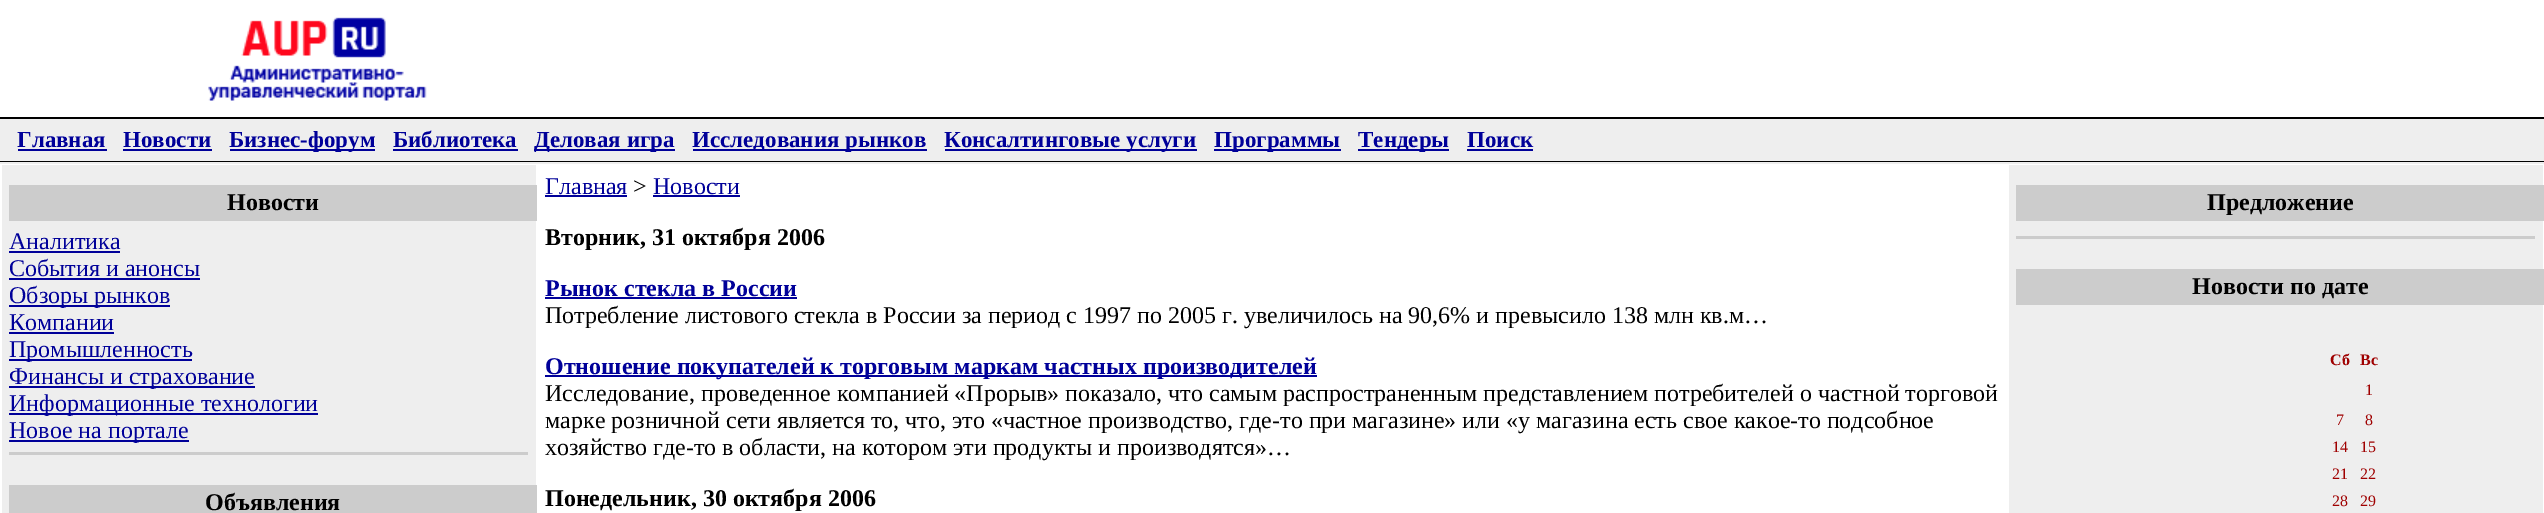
%!PS
<< /PageSize [2544 513] >> setpagedevice
/co { dup -16 bitshift 255 div exch dup -8 bitshift 255 and 255 div exch 255 and 255 div setrgbcolor } def
/fn { [ exch dup neg 0 0 3 -1 roll 0 0 ] selectfont } def
/tx { co fn moveto show } def
/bx { co rectfill } def
/im { 5 dict begin { /h /w /y /x /name } { exch def } forall
  gsave x y translate w h scale
  w h 8 [w 0 0 h 0 0] name (r) file false 3 colorimage grestore end } def
0 513 translate 1 -1 scale
4 setmiterlimit
0 0 2544 513 16#FFFFFF bx
(media/1.raw) 208 17 219 84 im
0 119 2544 42 16#EEEEEE bx
0 117 2544 2 16#000000 bx
0 161 2544 1 16#000000 bx
18 149 89 2 16#000099 bx
123 149 89 2 16#000099 bx
230 149 145 2 16#000099 bx
393 149 125 2 16#000099 bx
534 149 141 2 16#000099 bx
693 149 234 2 16#000099 bx
945 149 252 2 16#000099 bx
1214 149 127 2 16#000099 bx
1358 149 91 2 16#000099 bx
1467 149 66 2 16#000099 bx
0 162 2544 2 16#EEEEEE bx
2 165 534 348 16#EEEEEE bx
9 452 519 3 16#CCCCCC bx
9 185 528 36 16#CCCCCC bx
9 251 111 2 16#000099 bx
9 278 191 2 16#000099 bx
9 305 161 2 16#000099 bx
9 332 105 2 16#000099 bx
9 359 183 2 16#000099 bx
9 386 246 2 16#000099 bx
9 413 309 2 16#000099 bx
9 440 180 2 16#000099 bx
9 485 528 28 16#CCCCCC bx
545 195 82 2 16#000099 bx
653 195 87 2 16#000099 bx
545 297 252 2 16#000099 bx
545 375 772 2 16#000099 bx
2009 165 534 348 16#EEEEEE bx
2016 236 519 3 16#CCCCCC bx
2016 185 528 36 16#CCCCCC bx
2016 269 528 36 16#CCCCCC bx
(Главная) 17 147 /LiberationSerif-Bold 23 16#000099 tx
(Новости) 123 147 /LiberationSerif-Bold 23 16#000099 tx
(Бизнес-форум) 229 147 /LiberationSerif-Bold 23 16#000099 tx
(Библиотека) 393 147 /LiberationSerif-Bold 23 16#000099 tx
(Деловая игра) 534 147 /LiberationSerif-Bold 23 16#000099 tx
(Исследования рынков) 692 147 /LiberationSerif-Bold 23 16#000099 tx
(Консалтинговые услуги) 944 147 /LiberationSerif-Bold 23 16#000099 tx
(Программы) 1214 147 /LiberationSerif-Bold 23 16#000099 tx
(Тендеры) 1358 147 /LiberationSerif-Bold 23 16#000099 tx
(Поиск) 1467 147 /LiberationSerif-Bold 23 16#000099 tx
(Новости) 227 210 /LiberationSerif-Bold 24 16#000000 tx
(Аналитика) 9 249 /LiberationSerif-Regular 24 16#000099 tx
(События и анонсы) 9 276 /LiberationSerif-Regular 24 16#000099 tx
(Обзоры рынков) 9 303 /LiberationSerif-Regular 24 16#000099 tx
(Компании) 9 330 /LiberationSerif-Regular 24 16#000099 tx
(Промышленность) 9 357 /LiberationSerif-Regular 24 16#000099 tx
(Финансы и страхование) 9 384 /LiberationSerif-Regular 24 16#000099 tx
(Информационные технологии) 9 411 /LiberationSerif-Regular 24 16#000099 tx
(Новое на портале) 9 438 /LiberationSerif-Regular 24 16#000099 tx
(Объявления) 205 510 /LiberationSerif-Bold 24 16#000000 tx
(Главная) 545 194 /LiberationSerif-Regular 24 16#000099 tx
(>) 633 194 /LiberationSerif-Regular 24 16#000000 tx
(Новости) 653 194 /LiberationSerif-Regular 24 16#000099 tx
(Вторник, 31 октября 2006) 545 245 /LiberationSerif-Bold 24 16#000000 tx
(Рынок стекла в России) 545 296 /LiberationSerif-Bold 24 16#000099 tx
(Потребление листового стекла в России за период с 1997 по 2005 г. увеличилось на 90,6% и превысило 138 млн кв.м…) 545 323 /LiberationSerif-Regular 24 16#000000 tx
(Отношение покупателей к торговым маркам частных производителей) 545 374 /LiberationSerif-Bold 24 16#000099 tx
(Исследование, проведенное компанией «Прорыв» показало, что самым распространенным представлением потребителей о частной торговой) 545 401 /LiberationSerif-Regular 24 16#000000 tx
(марке розничной сети является то, что, это «частное производство, где-то при магазине» или «у магазина есть свое какое-то подсобное) 545 428 /LiberationSerif-Regular 24 16#000000 tx
(хозяйство где-то в области, на котором эти продукты и производятся»…) 545 455 /LiberationSerif-Regular 24 16#000000 tx
(Понедельник, 30 октября 2006) 545 506 /LiberationSerif-Bold 24 16#000000 tx
(Предложение) 2207 210 /LiberationSerif-Bold 24 16#000000 tx
(Новости по дате) 2192 294 /LiberationSerif-Bold 24 16#000000 tx
(Сб) 2330 365 /LiberationSerif-Bold 16 16#9F0000 tx
(Вс) 2360 365 /LiberationSerif-Bold 16 16#9F0000 tx
(1) 2365 395 /LiberationSerif-Regular 16 16#9F0000 tx
(7) 2336 425 /LiberationSerif-Regular 16 16#9F0000 tx
(8) 2365 425 /LiberationSerif-Regular 16 16#9F0000 tx
(14) 2332 452 /LiberationSerif-Regular 16 16#9F0000 tx
(15) 2360 452 /LiberationSerif-Regular 16 16#9F0000 tx
(21) 2332 479 /LiberationSerif-Regular 16 16#9F0000 tx
(22) 2360 479 /LiberationSerif-Regular 16 16#9F0000 tx
(28) 2332 506 /LiberationSerif-Regular 16 16#9F0000 tx
(29) 2360 506 /LiberationSerif-Regular 16 16#9F0000 tx
showpage
